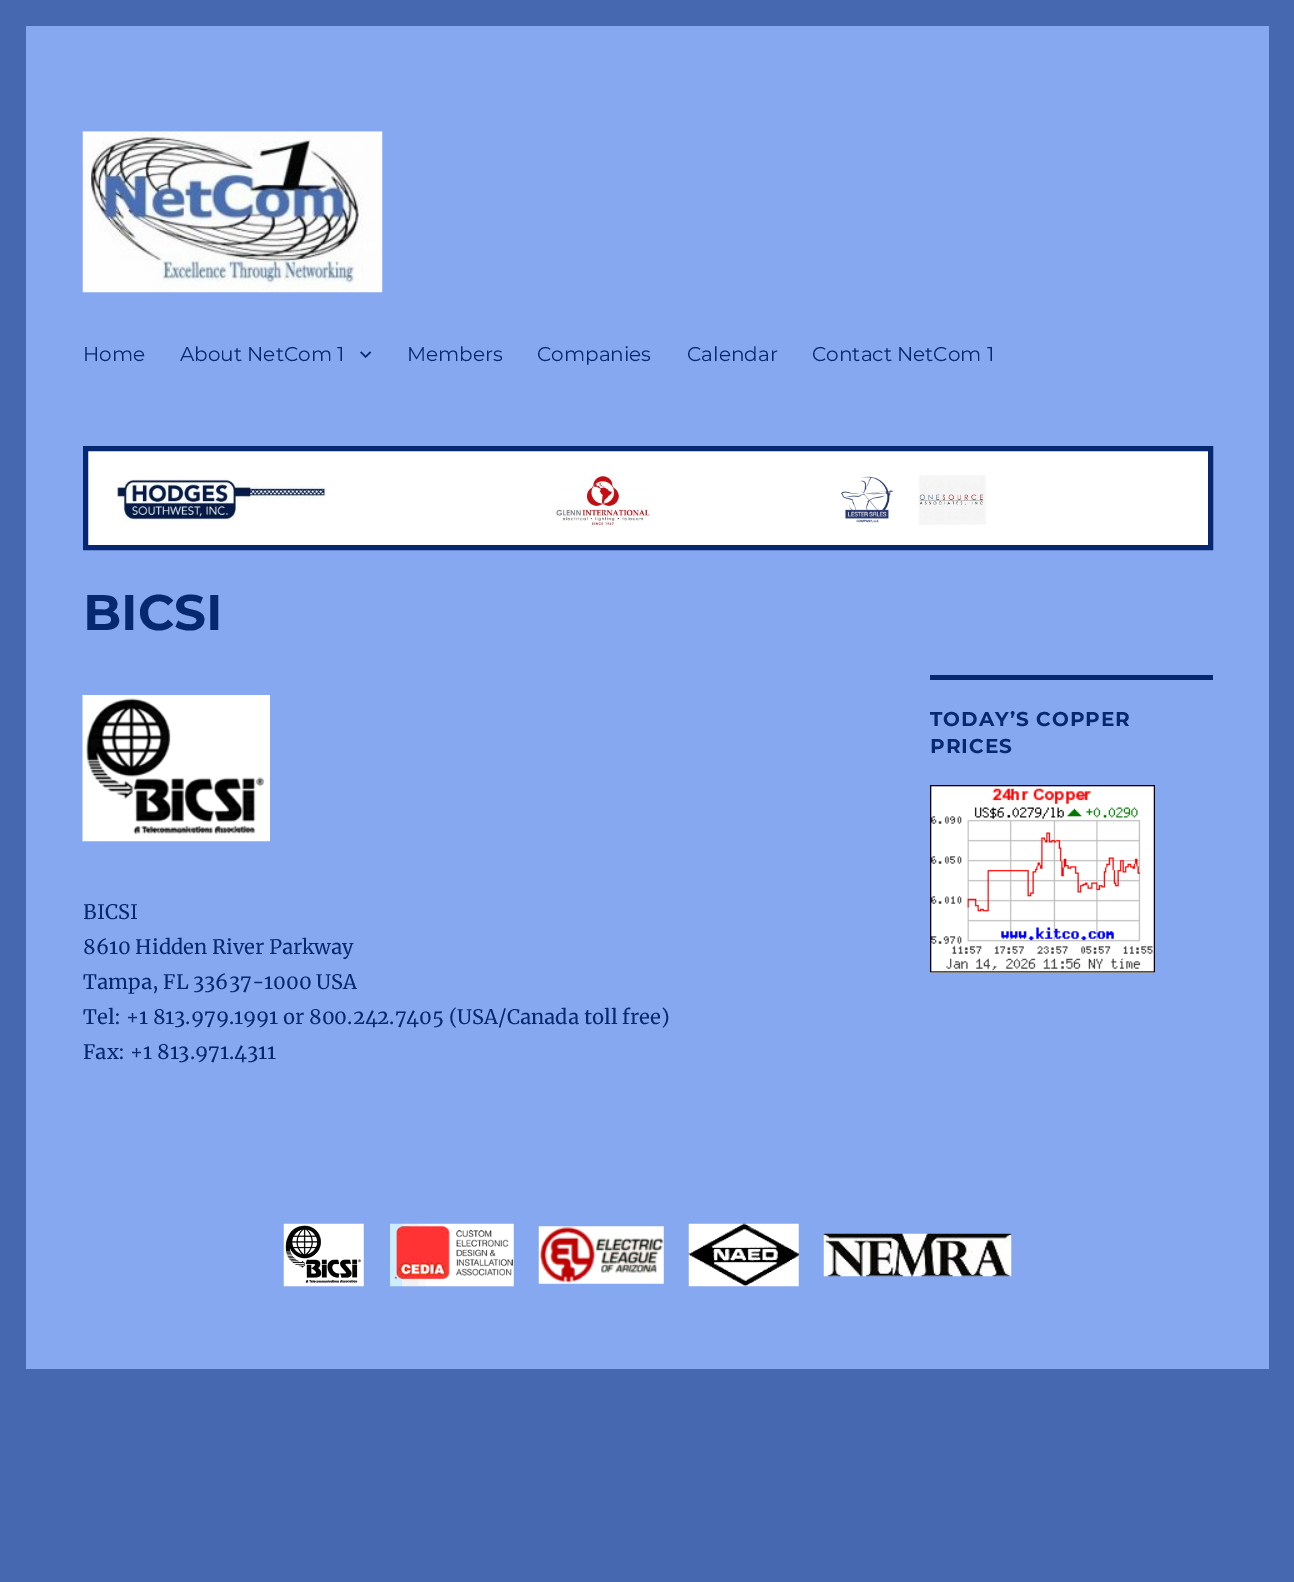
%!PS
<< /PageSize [1294 1582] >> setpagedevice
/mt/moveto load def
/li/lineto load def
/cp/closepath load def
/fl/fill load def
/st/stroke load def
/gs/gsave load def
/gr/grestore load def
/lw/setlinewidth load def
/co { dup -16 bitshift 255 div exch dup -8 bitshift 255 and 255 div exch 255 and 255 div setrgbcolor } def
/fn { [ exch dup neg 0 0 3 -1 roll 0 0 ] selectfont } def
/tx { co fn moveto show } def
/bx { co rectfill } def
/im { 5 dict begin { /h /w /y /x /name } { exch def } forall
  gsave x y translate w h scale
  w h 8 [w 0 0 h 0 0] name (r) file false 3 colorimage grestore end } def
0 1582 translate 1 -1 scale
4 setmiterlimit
0 0 1294 1582 16#4668B0 bx
26 26 1243 1343 16#86A8F0 bx
(media/1.raw) 82 131 301 162 im
(media/2.raw) 360 351 12 7 im
16#FFFFFF co
85.5 448.5 mt 1210.5 448.5 li 1210.5 547.5 li 85.5 547.5 li cp gs fl gr
16#062870 co
5 lw
st
(media/3.raw) 112 479 215 47 im
(media/4.raw) 556 473 95 53 im
(media/5.raw) 841 476 53 47 im
(media/6.raw) 918 475 68 50 im
(media/7.raw) 82 695 188 147 im
930 675 283 5 16#062870 bx
930 786 225 187 16#FFFFFF bx
(media/8.raw) 930 785 225 188 im
(media/9.raw) 283 1223 81 64 im
(media/10.raw) 390 1223 124 64 im
(media/11.raw) 538 1226 126 58 im
(media/12.raw) 688 1223 111 64 im
(media/13.raw) 823 1233 189 44 im
(Home) 83 361 /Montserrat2-Thin 20 16#062870 tx
(About NetCom 1) 180 361 /Montserrat2-Thin 20 16#062870 tx
(Members) 407 361 /Montserrat2-Thin 20 16#062870 tx
(Companies) 537 361 /Montserrat2-Thin 20 16#062870 tx
(Calendar) 687 361 /Montserrat2-Thin 20 16#062870 tx
(Contact NetCom 1) 812 361 /Montserrat2-Thin 20 16#062870 tx
(BICSI) 83 630 /Montserrat-Thin 50 16#062870 tx
(BICSI) 83 919 /Merriweather-Regular 20 16#062870 tx
(8610 Hidden River Parkway) 83 954 /Merriweather-Regular 20 16#062870 tx
(Tampa, FL 33637-1000 USA) 83 989 /Merriweather-Regular 20 16#062870 tx
(Tel: +1 813.979.1991 or 800.242.7405 \(USA/Canada toll free\)) 83 1024 /Merriweather-Regular 20 16#062870 tx
(Fax: +1 813.971.4311) 83 1059 /Merriweather-Regular 20 16#062870 tx
/Montserrat-Thin 20 fn
930 726 mt 1 0 (TODAY’S COPPER) ashow
930 753 mt 1 0 (PRICES) ashow
showpage
